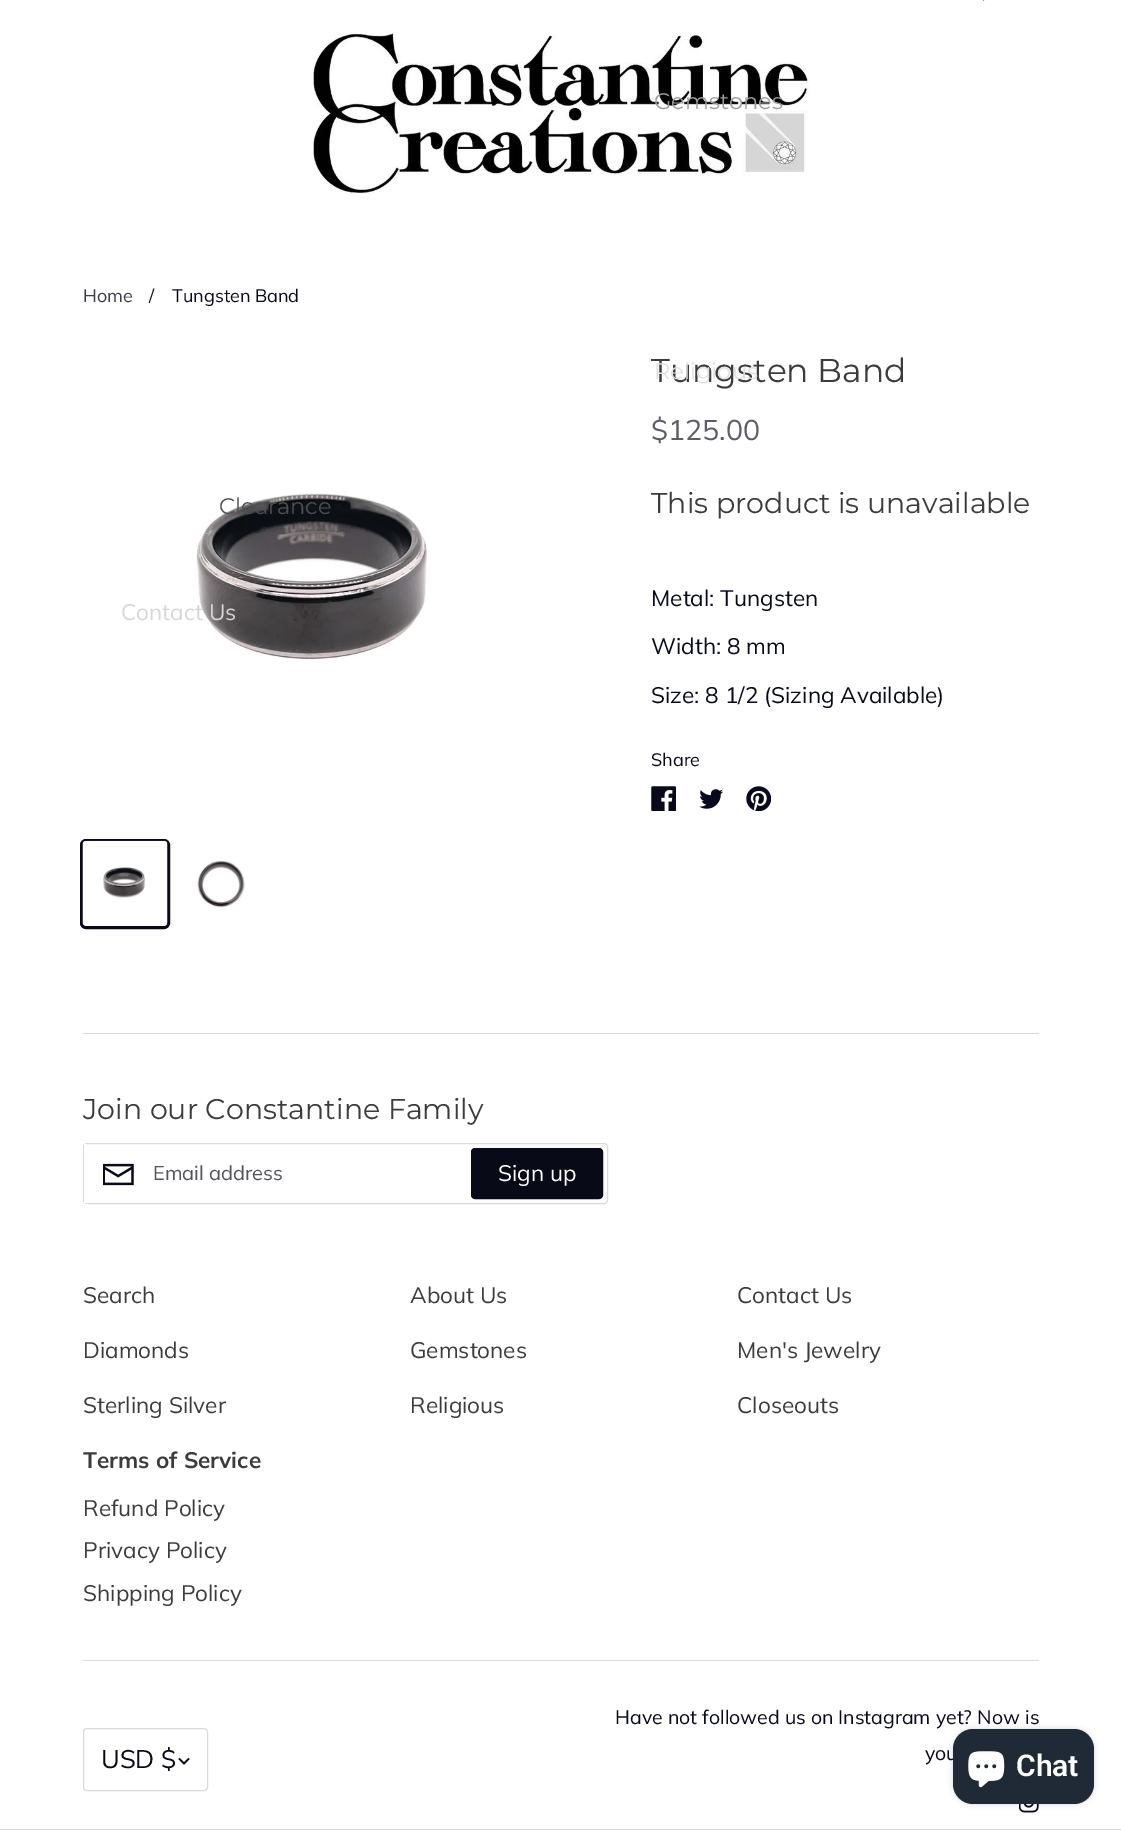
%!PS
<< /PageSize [1121 1830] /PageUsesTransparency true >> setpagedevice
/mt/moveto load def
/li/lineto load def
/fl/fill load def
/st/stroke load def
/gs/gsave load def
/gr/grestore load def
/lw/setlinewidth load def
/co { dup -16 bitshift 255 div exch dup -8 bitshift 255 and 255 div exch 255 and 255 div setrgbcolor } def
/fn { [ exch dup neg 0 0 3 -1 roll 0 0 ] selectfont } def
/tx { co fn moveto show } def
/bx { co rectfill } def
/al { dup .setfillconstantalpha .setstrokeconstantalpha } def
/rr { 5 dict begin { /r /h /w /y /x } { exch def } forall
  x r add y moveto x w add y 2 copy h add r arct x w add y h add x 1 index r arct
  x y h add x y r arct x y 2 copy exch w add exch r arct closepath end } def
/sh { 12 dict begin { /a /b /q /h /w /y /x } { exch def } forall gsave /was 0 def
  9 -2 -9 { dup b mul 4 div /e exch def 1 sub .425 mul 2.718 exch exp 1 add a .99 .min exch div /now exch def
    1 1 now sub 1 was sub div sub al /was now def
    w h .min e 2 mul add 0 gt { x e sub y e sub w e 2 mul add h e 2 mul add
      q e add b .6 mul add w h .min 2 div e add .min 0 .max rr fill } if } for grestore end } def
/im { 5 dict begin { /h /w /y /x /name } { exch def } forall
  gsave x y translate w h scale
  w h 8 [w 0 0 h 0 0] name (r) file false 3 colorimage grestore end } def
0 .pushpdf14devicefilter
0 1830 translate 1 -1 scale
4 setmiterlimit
0 0 1121 1830 16#FFFFFF bx
(media/1.raw) 311 31 499 163 im
(media/2.raw) 983 0 2 1 im
0 1829 1121 1 16#DADADC bx
(media/3.raw) 196 493 233 167 im
16#080A18 co
3 lw
81.5 840.5 87 87 4.5 rr st
(media/4.raw) 82 840 86 86 im
(media/5.raw) 197 860 48 49 im
(media/6.raw) 651 786 25 25 im
(media/7.raw) 699 789 24 20 im
(media/8.raw) 746 786 25 25 im
83 1033 956 1 16#DADADC bx
1 lw
83.5 1143.5 524 60 3.5 rr st
(media/9.raw) 103 1163 31 23 im
84 1144 3 59 16#FFFFFF bx
16#080A18 co
471.5 1148.5 131 50 3.5 rr gs fl gr
st
83 1660 956 1 16#DADADC bx
83.5 1728.5 124 62 3.5 rr st
16#080A18 co
1.7 lw
179 1758.5 mt 184 1763.5 li 189 1758.5 li st
(media/10.raw) 1019 1804 20 9 im
16#000000 co
953 1729 141 75 20 3 .15 sh
(Gemstones) 654 109 /Montserrat-Regular 22.5 16#9D9D9D tx
(Clearance) 219 514 /Montserrat-Regular 22.5 16#4D4F52 tx
(Contact Us) 121 620 /Muli-Regular 22.5 16#D7D6D7 tx
(Home) 83 302 /Muli-Regular 18 16#393B46 tx
(/) 149 302 /Muli-Regular 18 16#080A18 tx
(Tungsten Band) 172 302 /Muli-Regular 18 16#080A18 tx
(Tungsten Band) 651 382 /Montserrat-Regular 33 16#3B3B3B tx
(Religious) 654 379 /Montserrat-Regular 22.5 16#DFDFDF tx
($125.00) 651 440 /Muli-Regular 28.5 16#5C5D66 tx
(This product is unavailable) 651 513 /Montserrat-Regular 28.5 16#3B3B3B tx
(Metal: Tungsten) 651 606 /Muli-Regular 22.5 16#080A18 tx
(Width: 8 mm) 651 654 /Muli-Regular 22.5 16#080A18 tx
(Size: 8 1/2 \(Sizing Available\)) 651 703 /Muli-Regular 22.5 16#080A18 tx
(Share) 651 766 /Muli-Regular 18 16#080A18 tx
(Join our Constantine Family) 83 1119 /Montserrat-Regular 28.5 16#3B3B3B tx
(Email address) 153 1180 /Muli-Regular 20 16#52545D tx
(Sign up) 498 1181 /Muli-Regular 22.5 16#FFFFFF tx
(Search) 83 1303 /Muli-Regular 22.5 16#3B3B3B tx
(About Us) 410 1303 /Muli-Regular 22.5 16#3B3B3B tx
(Contact Us) 737 1303 /Muli-Regular 22.5 16#3B3B3B tx
(Diamonds) 83 1358 /Muli-Regular 22.5 16#3B3B3B tx
(Gemstones) 410 1358 /Muli-Regular 22.5 16#3B3B3B tx
(Men's Jewelry) 737 1358 /Muli-Regular 22.5 16#3B3B3B tx
(Sterling Silver) 83 1413 /Muli-Regular 22.5 16#3B3B3B tx
(Religious) 410 1413 /Muli-Regular 22.5 16#3B3B3B tx
(Closeouts) 737 1413 /Muli-Regular 22.5 16#3B3B3B tx
(Terms of Service) 83 1468 /Muli-Bold 22.5 16#3B3B3B tx
(Refund Policy) 83 1516 /Muli-Regular 22.5 16#3B3B3B tx
(Privacy Policy) 83 1558 /Muli-Regular 22.5 16#3B3B3B tx
(Shipping Policy) 83 1601 /Muli-Regular 22.5 16#3B3B3B tx
(USD $) 101 1768 /Muli-Regular 25.5 16#080A18 tx
(Have not followed us on Instagram yet? Now is) 615 1724 /Muli-Regular 19.5 16#080A18 tx
(you) 925 1760 /Muli-Regular 19.5 16#080A18 tx
16#202A36 co
953 1729 141 75 20 rr fl
(media/11.raw) 968 1751 37 37 im
(Chat) 1016 1776 /Roboto-SemiBold 30 16#FFFFFF tx
.poppdf14devicefilter showpage
